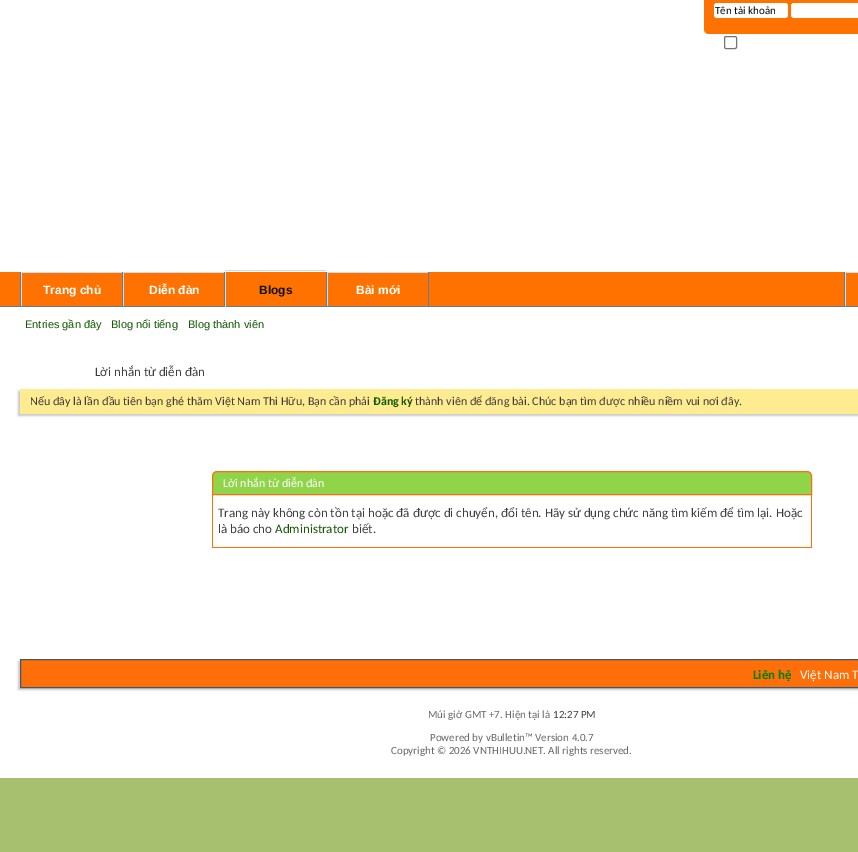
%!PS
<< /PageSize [858 852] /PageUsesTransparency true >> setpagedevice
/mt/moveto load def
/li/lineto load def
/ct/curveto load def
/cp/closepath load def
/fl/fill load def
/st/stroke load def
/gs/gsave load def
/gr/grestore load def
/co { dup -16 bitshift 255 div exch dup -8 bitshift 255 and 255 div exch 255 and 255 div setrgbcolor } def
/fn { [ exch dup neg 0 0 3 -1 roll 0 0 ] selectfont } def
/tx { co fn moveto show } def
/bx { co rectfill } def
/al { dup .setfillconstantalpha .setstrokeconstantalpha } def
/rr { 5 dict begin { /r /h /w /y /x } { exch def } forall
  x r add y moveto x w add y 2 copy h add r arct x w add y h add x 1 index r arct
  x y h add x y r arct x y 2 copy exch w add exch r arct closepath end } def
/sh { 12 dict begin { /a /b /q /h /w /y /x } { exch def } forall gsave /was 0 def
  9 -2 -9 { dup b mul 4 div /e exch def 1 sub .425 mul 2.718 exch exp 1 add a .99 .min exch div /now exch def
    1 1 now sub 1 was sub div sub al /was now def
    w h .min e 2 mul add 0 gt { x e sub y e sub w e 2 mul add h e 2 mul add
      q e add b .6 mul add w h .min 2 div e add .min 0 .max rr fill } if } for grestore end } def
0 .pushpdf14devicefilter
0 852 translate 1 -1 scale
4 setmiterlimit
0 0 858 852 16#A6C070 bx
0 0 858 778 16#FFFFFF bx
16#FF7200 co
704 0 mt 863 0 li 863 29 li 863 32 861 34 858 34 ct 709 34 li 706 34 704 32 704 29 ct cp fl
16#FFFFFF co
714 3 74 15 3 rr fl
791 3 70 15 3 rr fl
16#767676 co
724.5 36.5 12 12 1.5 rr st
0 272 858 34 16#FF7200 bx
224 272 1 35 16#5A7F97 bx
123 272 101 1 16#CEDFEB bx
123 272 1 35 16#CEDFEB bx
326 272 1 34 16#5A7F97 bx
225 270 101 1 16#CEDFEB bx
122 272 1 35 16#5A7F97 bx
20 272 1 35 16#5A7F97 bx
21 272 101 1 16#CEDFEB bx
21 272 1 35 16#CEDFEB bx
428 272 1 35 16#5A7F97 bx
327 272 101 1 16#CEDFEB bx
327 272 1 35 16#CEDFEB bx
0 306 858 1 16#5A7F97 bx
225 270 1 37 16#CEDFEB bx
844 272 1 34 16#5A7F97 bx
845 272 13 1 16#CEDFEB bx
845 272 1 34 16#CEDFEB bx
16#C8C8C8 co
18 391 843 25 0 1 1 sh
20 389 838 25 16#FFEB90 bx
16#90D449 co
217 471.5 mt 807 471.5 li 809.5 471.5 811.5 473.5 811.5 476 ct 811.5 494.5 li 212.5 494.5 li 212.5 476 li 212.5 473.5 214.5 471.5 217 471.5 ct cp gs fl gr
16#FF6F09 co
st
811 495 1 53 16#FF6F09 bx
212 547 600 1 16#FF6F09 bx
212 495 1 53 16#FF6F09 bx
16#C8C8C8 co
18 661 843 29 0 1 1 sh
16#FF6F09 co
20.5 659.5 mt 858.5 659.5 li 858.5 687.5 li 20.5 687.5 li cp gs fl gr
16#435769 co
st
(Tên tài khoản) 715 14 /Carlito-Regular 11 16#000000 tx
(Diễn đàn) 149 294 /LiberationSans-Bold 12 16#FFFFFF tx
(Blogs) 259 294 /LiberationSans-Bold 12 16#111111 tx
(Entries gần đây) 25 328 /LiberationSans-Regular 11 16#105802 tx
(Blog nổi tiếng) 111 328 /LiberationSans-Regular 11 16#105802 tx
(Blog thành viên) 188 328 /LiberationSans-Regular 11 16#105802 tx
(Trang chủ) 43 294 /LiberationSans-Bold 12 16#FFFFFF tx
(Bài mới) 356 294 /LiberationSans-Bold 12 16#FFFFFF tx
(Lời nhắn từ diễn đàn) 95 376 /Carlito-Regular 13 16#3E3E3E tx
(Nếu đây là lần đầu tiên bạn ghé thăm Việt Nam Thi Hữu, Bạn cần phải) 30 405 /Carlito-Regular 12 16#3E3E3E tx
(Đăng ký) 373 405 /Carlito-Bold 12 16#105802 tx
(thành viên để đăng bài. Chúc bạn tìm được nhiều niềm vui nơi đây.) 415 405 /Carlito-Regular 12 16#3E3E3E tx
(Lời nhắn từ diễn đàn) 223 487 /Carlito-Regular 12 16#FFFFFF tx
(Trang này không còn tồn tại hoặc đã được di chuyển, đổi tên. Hãy sử dụng chức năng tìm kiếm để tìm lại. Hoặc) 218 517 /Carlito-Regular 13 16#3E3E3E tx
(là báo cho) 218 533 /Carlito-Regular 13 16#3E3E3E tx
(Administrator) 275 533 /Carlito-Regular 13 16#105802 tx
(biết.) 352 533 /Carlito-Regular 13 16#3E3E3E tx
(Liên hệ) 753 679 /Carlito-Bold 13 16#008000 tx
(Việt Nam T) 800 679 /Carlito-Regular 13 16#FFFFFF tx
(Múi giờ GMT +7. Hiện tại là) 428 718 /Carlito-Regular 11 16#666666 tx
(12:27 PM) 553 718 /Carlito-Regular 11 16#3E3E3E tx
(Powered by vBulletin™ Version 4.0.7) 430 741 /Carlito-Regular 11 16#666666 tx
(Copyright © 2026 VNTHIHUU.NET. All rights reserved.) 391 754 /Carlito-Regular 11 16#666666 tx
.poppdf14devicefilter showpage
